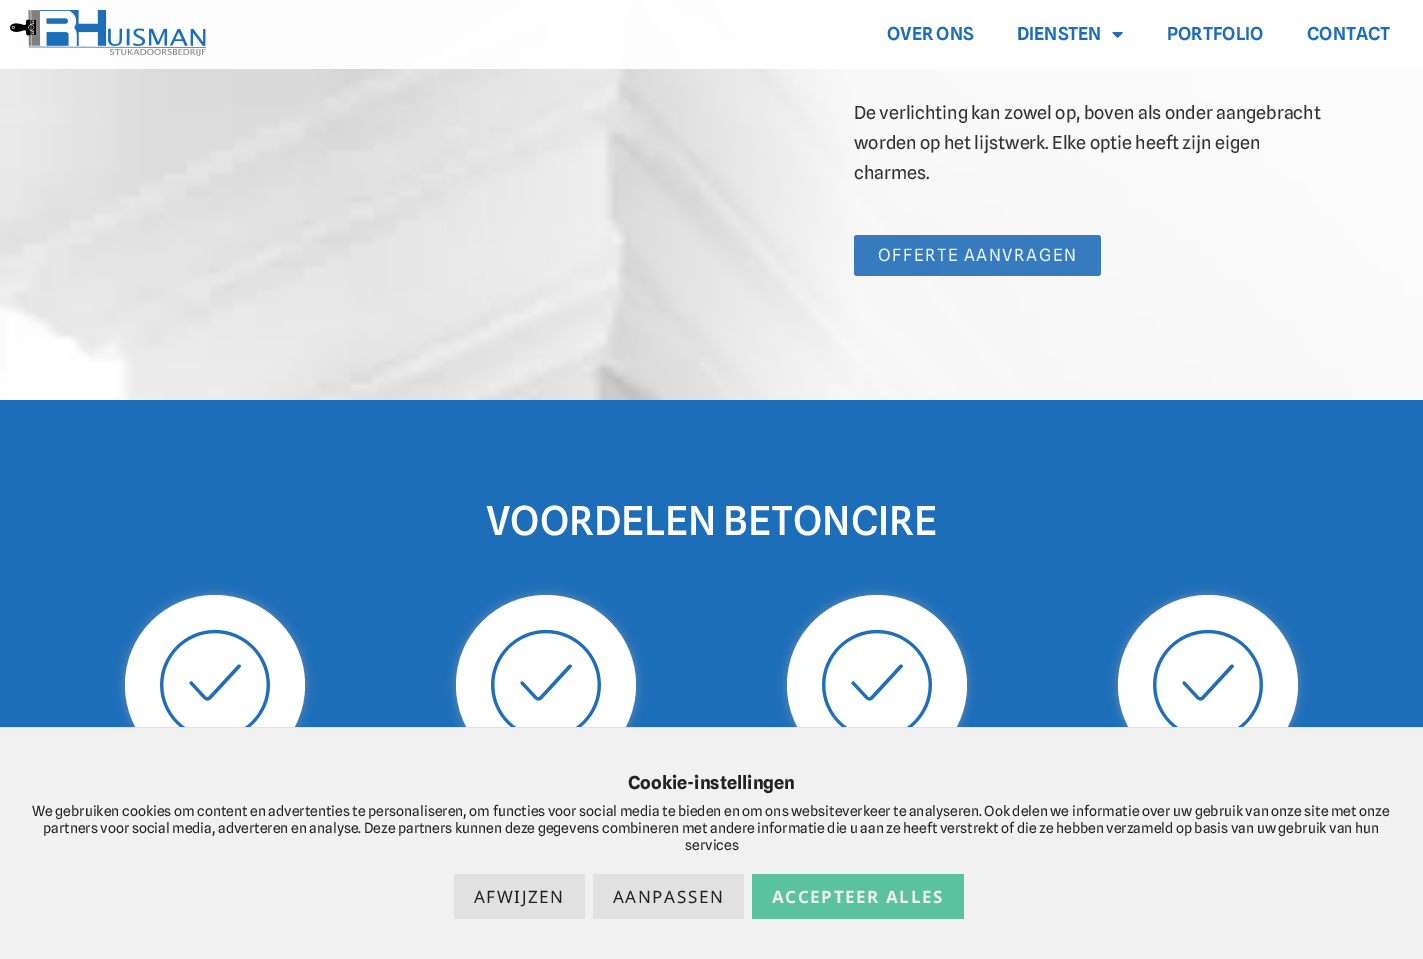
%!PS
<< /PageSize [1423 959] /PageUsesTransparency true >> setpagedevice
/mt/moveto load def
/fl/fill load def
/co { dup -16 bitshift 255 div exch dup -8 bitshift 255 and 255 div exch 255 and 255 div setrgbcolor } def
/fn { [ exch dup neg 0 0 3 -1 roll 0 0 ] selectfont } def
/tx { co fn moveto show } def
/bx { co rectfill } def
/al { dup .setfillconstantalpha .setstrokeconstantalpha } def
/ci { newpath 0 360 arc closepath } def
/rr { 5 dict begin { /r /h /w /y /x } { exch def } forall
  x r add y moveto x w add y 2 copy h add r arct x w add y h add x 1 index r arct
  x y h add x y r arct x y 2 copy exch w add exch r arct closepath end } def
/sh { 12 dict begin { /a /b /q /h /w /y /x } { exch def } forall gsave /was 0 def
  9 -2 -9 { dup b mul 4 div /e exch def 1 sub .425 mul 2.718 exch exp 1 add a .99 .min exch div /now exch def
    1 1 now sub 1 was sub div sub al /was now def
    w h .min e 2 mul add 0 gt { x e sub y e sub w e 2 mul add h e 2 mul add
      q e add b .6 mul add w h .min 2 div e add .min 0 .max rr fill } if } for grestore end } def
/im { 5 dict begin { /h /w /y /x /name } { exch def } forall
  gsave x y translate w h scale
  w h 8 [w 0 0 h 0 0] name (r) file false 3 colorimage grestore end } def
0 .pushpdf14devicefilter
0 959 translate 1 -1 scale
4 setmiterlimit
0 0 1423 959 16#FFFFFF bx
(media/3.raw) 0 0 1423 400 im
0.95 al
0 0 1423 69 16#FFFFFF bx
1 al
(media/1.raw) 10 10 196 47 im
(media/2.raw) 1112 32 11 6 im
0.9 al
16#206DB7 co
854 235 247 41 3 rr fl
1 al
0 400 1423 327 16#1D6EB8 bx
16#ABABAB co
125 595 180 180 90 5 .5 sh
16#FFFFFF co
215 685 90 ci fl
(media/4.raw) 160 629 110 98 im
16#ABABAB co
456 595 180 180 90 5 .5 sh
16#FFFFFF co
546 685 90 ci fl
(media/4.raw) 491 629 110 98 im
16#ABABAB co
787 595 180 180 90 5 .5 sh
16#FFFFFF co
877 685 90 ci fl
(media/4.raw) 822 629 110 98 im
16#ABABAB co
1118 595 180 180 90 5 .5 sh
16#FFFFFF co
1208 685 90 ci fl
(media/4.raw) 1153 629 110 98 im
0 728 1423 231 16#F1F1F1 bx
0 727 1423 1 16#E1E1E1 bx
454 874 131 45 16#E1E1E1 bx
593 874 151 45 16#E1E1E1 bx
752 874 212 45 16#5BC29F bx
(OVER ONS) 887 40 /SplineSans-SemiBold 18 16#1D6EB8 tx
(DIENSTEN) 1017 40 /SplineSans-SemiBold 18 16#1D6EB8 tx
(PORTFOLIO) 1167 40 /SplineSans-SemiBold 18 16#1D6EB8 tx
(CONTACT) 1307 40 /SplineSans-SemiBold 18 16#1D6EB8 tx
(De verlichting kan zowel op, boven als onder aangebracht) 854 119 /SplineSans-Regular 18 16#313131 tx
(worden op het lijstwerk. Elke optie heeft zijn eigen) 854 149 /SplineSans-Regular 18 16#313131 tx
(charmes.) 854 179 /SplineSans-Regular 18 16#313131 tx
/SplineSans-Regular 17 fn
16#EBF2F8 co
878 261 mt 1.6 0 (OFFERTE AANVRAGEN) ashow
(VOORDELEN BETONCIRE) 486 535 /SplineSans-Medium 40 16#FFFFFF tx
(Cookie-instellingen) 628 789 /SplineSans-Bold 18 16#222222 tx
(We gebruiken cookies om content en advertenties te personaliseren, om functies voor social media te bieden en om ons websiteverkeer te analyseren. Ook delen we informatie over uw gebruik van onze site met onze) 32 816 /SplineSans-Regular 14 16#222222 tx
(partners voor social media, adverteren en analyse. Deze partners kunnen deze gegevens combineren met andere informatie die u aan ze heeft verstrekt of die ze hebben verzameld op basis van uw gebruik van hun) 43 833 /SplineSans-Regular 14 16#222222 tx
(services) 685 850 /SplineSans-Regular 14 16#222222 tx
/NotoSans-Regular 17 fn
474 903 mt 1.6 0 (AFWIJZEN) ashow
613 903 mt 1.6 0 (AANPASSEN) ashow
/NotoSans-Bold 17 fn
16#EEEEEE co
772 903 mt 1.6 0 (ACCEPTEER ALLES) ashow
.poppdf14devicefilter showpage
